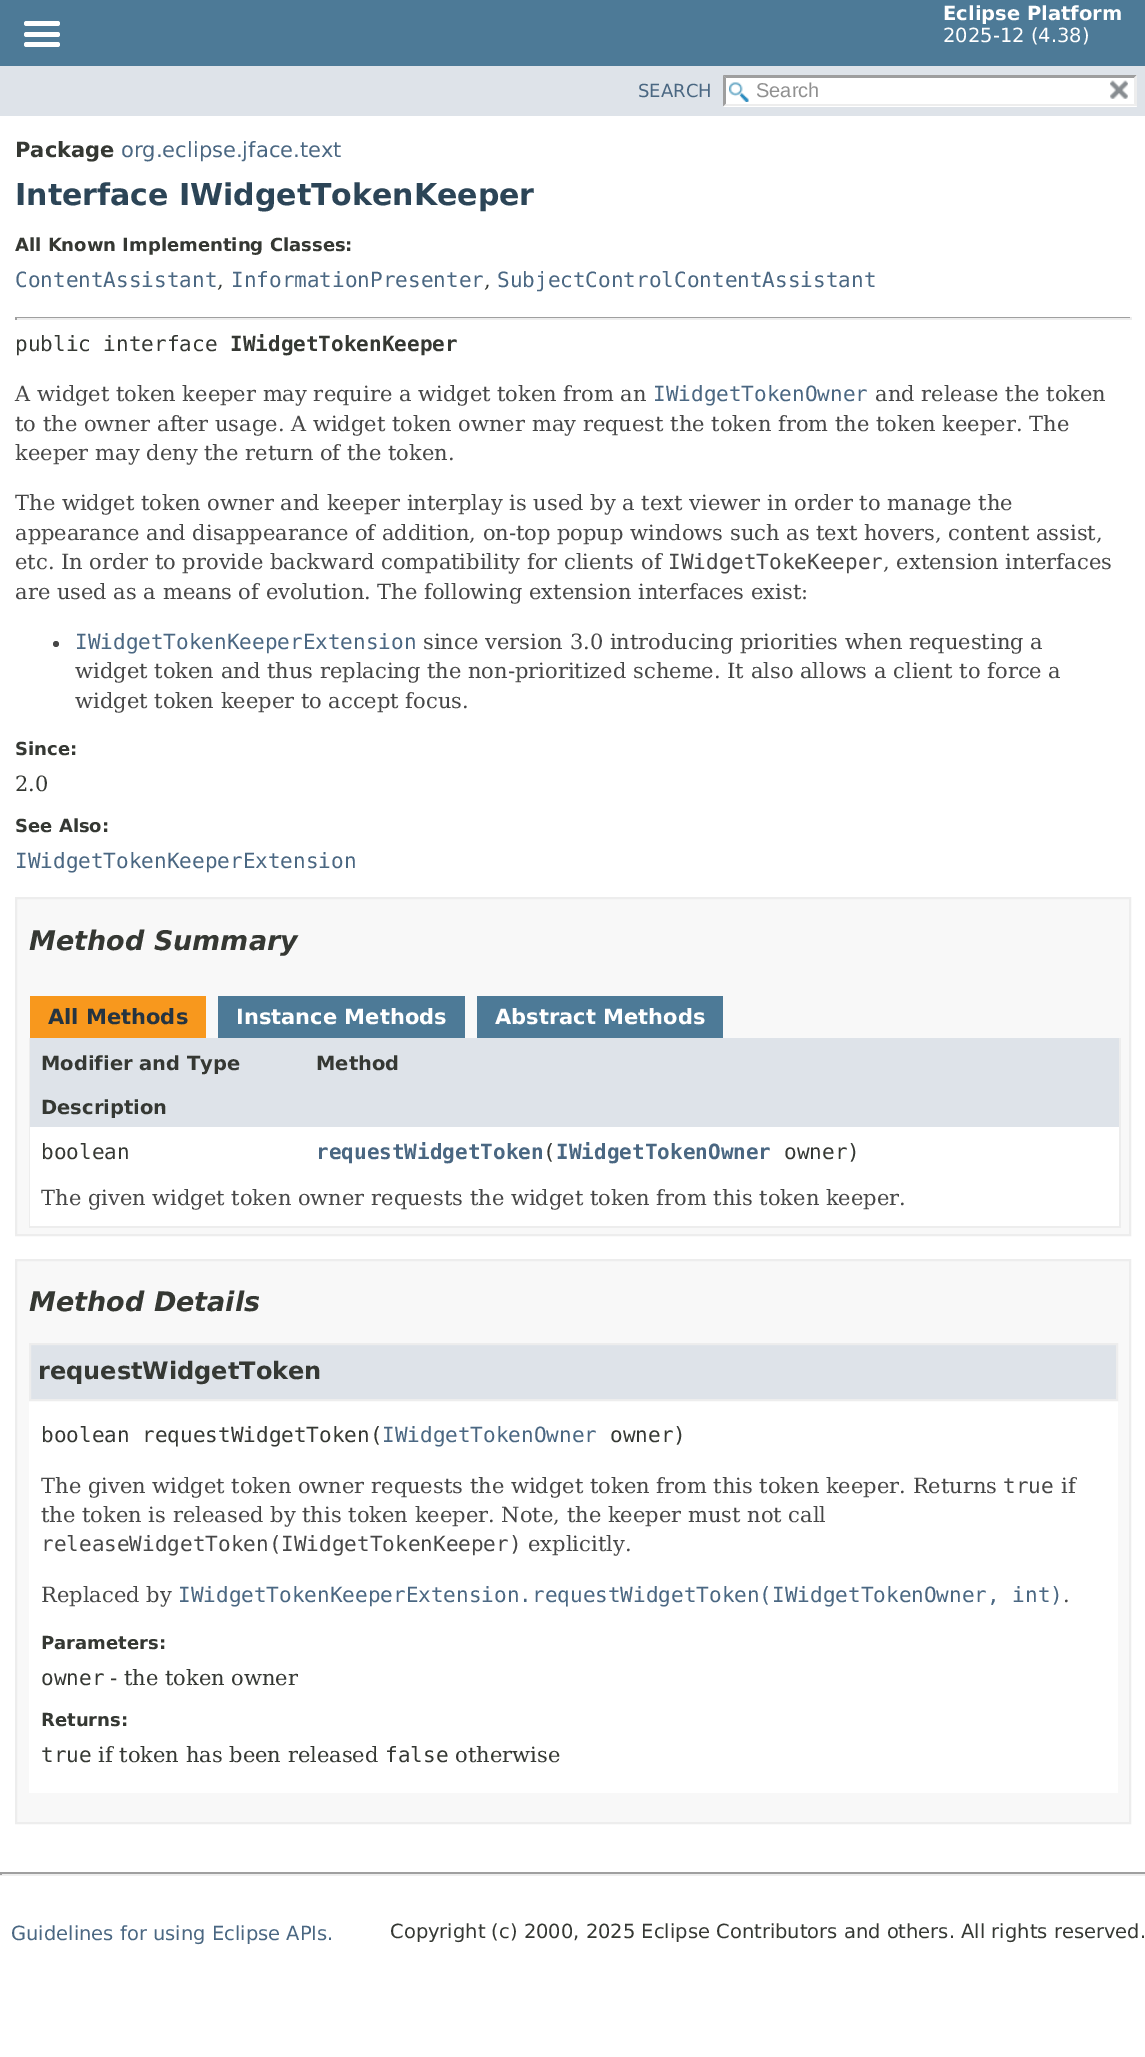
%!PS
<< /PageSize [1145 2057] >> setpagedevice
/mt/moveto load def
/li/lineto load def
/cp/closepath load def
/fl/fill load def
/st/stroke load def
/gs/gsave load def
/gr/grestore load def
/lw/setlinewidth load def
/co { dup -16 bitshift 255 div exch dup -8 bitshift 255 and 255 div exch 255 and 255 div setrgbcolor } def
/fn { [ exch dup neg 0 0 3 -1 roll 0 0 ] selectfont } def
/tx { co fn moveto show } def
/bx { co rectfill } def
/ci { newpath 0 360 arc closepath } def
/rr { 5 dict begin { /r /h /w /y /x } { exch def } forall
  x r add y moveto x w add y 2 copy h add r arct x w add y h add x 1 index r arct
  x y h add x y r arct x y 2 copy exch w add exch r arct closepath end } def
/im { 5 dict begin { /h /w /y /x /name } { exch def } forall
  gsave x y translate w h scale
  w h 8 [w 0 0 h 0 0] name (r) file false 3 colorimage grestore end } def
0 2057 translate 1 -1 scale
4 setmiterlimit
0 0 1145 2057 16#FFFFFF bx
0 0 1145 66 16#4D7A97 bx
16#FFFFFF co
24 21 36 5 2.5 rr fl
24 32 36 5 2.5 rr fl
24 42 36 5 2.5 rr fl
0 66 1145 50 16#DEE3E9 bx
723 75 414 32 16#FFFFFF bx
(media/1.raw) 729 82 20 20 im
16#9E9E9E co
723 75 mt 1137 75 li 1134 78 li 726 78 li cp fl
16#EDEDED co
1137 75 mt 1137 106.5 li 1134 103.5 li 1134 78 li cp fl
1137 106 mt 723 106 li 726 104 li 1134 104 li cp fl
16#9E9E9E co
723 106.5 mt 723 75 li 726 78 li 726 103.5 li cp fl
(media/2.raw) 1110 80 18 19 im
15 317 1116 1 16#9F9F9F bx
1130 317 2 3 16#EEEEEE bx
15 318 1116 2 16#EEEEEE bx
15 317 2 3 16#9F9F9F bx
16#474747 co
56 644 3 ci fl
16#F8F8F8 co
16 898 mt 1130 898 li 1130 1235 li 16 1235 li cp gs fl gr
16#EDEDED co
2 lw
st
30 996 176 42 16#F8981D bx
218 996 247 42 16#4D7A97 bx
477 996 246 42 16#4D7A97 bx
1119 1038 2 189 16#EDEDED bx
29 1226 1092 2 16#EDEDED bx
29 1038 2 189 16#EDEDED bx
30 1038 1089 89 16#DEE3E9 bx
30 1127 1089 99 16#FFFFFF bx
16#F8F8F8 co
16 1260 mt 1130 1260 li 1130 1823 li 16 1823 li cp gs fl gr
16#EDEDED co
st
29 1401 1089 392 16#FFFFFF bx
16#DEE3E9 co
30 1344 mt 1117 1344 li 1117 1400 li 30 1400 li cp gs fl gr
16#EDEDED co
st
0 1872 1145 2 16#9F9F9F bx
0 1874 1145 2 16#EEEEEE bx
0 1872 2 3 16#9F9F9F bx
(Eclipse Platform) 943 20 /DejaVuSans-Bold 19.5 16#FFFFFF tx
(2025-12 \(4.38\)) 943 42 /DejaVuSans-Regular 19.5 16#FFFFFF tx
(SEARCH) 638 97 /DejaVuSans-Regular 18 16#4A6782 tx
(Search) 756 97 /LiberationSans-Regular 20 16#909090 tx
(Package) 15 157 /DejaVuSans-Bold 21 16#353833 tx
(org.eclipse.jface.text) 121 157 /DejaVuSans-Regular 21 16#4A6782 tx
(Interface IWidgetTokenKeeper) 15 205 /DejaVuSans-Bold 30 16#2C4557 tx
(All Known Implementing Classes:) 15 251 /DejaVuSans-Bold 18 16#353833 tx
(ContentAssistant) 15 287 /DejaVuSansMono-Regular 21 16#4A6782 tx
(,) 217 287 /DejaVuSerif-Regular 21 16#353833 tx
(InformationPresenter) 231 287 /DejaVuSansMono-Regular 21 16#4A6782 tx
(,) 484 287 /DejaVuSerif-Regular 21 16#353833 tx
(SubjectControlContentAssistant) 497 287 /DejaVuSansMono-Regular 21 16#4A6782 tx
(public interface) 15 351 /DejaVuSansMono-Regular 21 16#353833 tx
(IWidgetTokenKeeper) 230 351 /DejaVuSansMono-Bold 21 16#353833 tx
(A widget token keeper may require a widget token from an) 15 401 /DejaVuSerif-Regular 21 16#474747 tx
(IWidgetTokenOwner) 653 401 /DejaVuSansMono-Regular 21 16#4A6782 tx
(and release the token) 875 401 /DejaVuSerif-Regular 21 16#474747 tx
(to the owner after usage. A widget token owner may request the token from the token keeper. The) 15 431 /DejaVuSerif-Regular 21 16#474747 tx
(keeper may deny the return of the token.) 15 460 /DejaVuSerif-Regular 21 16#474747 tx
(The widget token owner and keeper interplay is used by a text viewer in order to manage the) 15 510 /DejaVuSerif-Regular 21 16#474747 tx
(appearance and disappearance of addition, on-top popup windows such as text hovers, content assist,) 15 540 /DejaVuSerif-Regular 21 16#474747 tx
(etc. In order to provide backward compatibility for clients of) 15 569 /DejaVuSerif-Regular 21 16#474747 tx
(IWidgetTokeKeeper) 668 569 /DejaVuSansMono-Regular 21 16#474747 tx
(, extension interfaces) 883 569 /DejaVuSerif-Regular 21 16#474747 tx
(are used as a means of evolution. The following extension interfaces exist:) 15 599 /DejaVuSerif-Regular 21 16#474747 tx
(IWidgetTokenKeeperExtension) 75 649 /DejaVuSansMono-Regular 21 16#4A6782 tx
(since version 3.0 introducing priorities when requesting a) 423 649 /DejaVuSerif-Regular 21 16#474747 tx
(widget token and thus replacing the non-prioritized scheme. It also allows a client to force a) 75 678 /DejaVuSerif-Regular 21 16#474747 tx
(widget token keeper to accept focus.) 75 708 /DejaVuSerif-Regular 21 16#474747 tx
(Since:) 15 755 /DejaVuSans-Bold 18 16#353833 tx
(2.0) 15 791 /DejaVuSerif-Regular 21 16#353833 tx
(See Also:) 15 832 /DejaVuSans-Bold 18 16#353833 tx
(IWidgetTokenKeeperExtension) 15 868 /DejaVuSansMono-Regular 21 16#4A6782 tx
(Method Summary) 29 950 /DejaVuSans-BoldItalic 27 16#353833 tx
(All Methods) 48 1024 /DejaVuSans-Bold 21 16#253441 tx
(Instance Methods) 236 1024 /DejaVuSans-Bold 21 16#FFFFFF tx
(Abstract Methods) 495 1024 /DejaVuSans-Bold 21 16#FFFFFF tx
(Modifier and Type) 41 1070 /DejaVuSans-Bold 19.5 16#353833 tx
(Method) 316 1070 /DejaVuSans-Bold 19.5 16#353833 tx
(Description) 41 1114 /DejaVuSans-Bold 19.5 16#353833 tx
(boolean) 41 1159 /DejaVuSansMono-Regular 21 16#353833 tx
(requestWidgetToken IWidgetTokenOwner) 316 1159 /DejaVuSansMono-Bold 21 16#4A6782 tx
(\() 543 1159 /DejaVuSansMono-Regular 21 16#353833 tx
(owner\)) 784 1159 /DejaVuSansMono-Regular 21 16#353833 tx
(The given widget token owner requests the widget token from this token keeper.) 41 1205 /DejaVuSerif-Regular 21 16#474747 tx
(Method Details) 29 1311 /DejaVuSans-BoldItalic 27 16#353833 tx
(requestWidgetToken) 38 1379 /DejaVuSans-Bold 24 16#353833 tx
(boolean requestWidgetToken\() 41 1442 /DejaVuSansMono-Regular 21 16#353833 tx
(IWidgetTokenOwner) 382 1442 /DejaVuSansMono-Regular 21 16#4A6782 tx
(owner\)) 610 1442 /DejaVuSansMono-Regular 21 16#353833 tx
(The given widget token owner requests the widget token from this token keeper. Returns) 41 1493 /DejaVuSerif-Regular 21 16#474747 tx
(true) 1003 1493 /DejaVuSansMono-Regular 21 16#474747 tx
(if) 1061 1493 /DejaVuSerif-Regular 21 16#474747 tx
(the token is released by this token keeper. Note, the keeper must not call) 41 1522 /DejaVuSerif-Regular 21 16#474747 tx
(releaseWidgetToken\(IWidgetTokenKeeper\)) 41 1551 /DejaVuSansMono-Regular 21 16#474747 tx
(explicitly.) 528 1551 /DejaVuSerif-Regular 21 16#474747 tx
(Replaced by) 41 1602 /DejaVuSerif-Regular 21 16#474747 tx
(IWidgetTokenKeeperExtension.requestWidgetToken\(IWidgetTokenOwner, int\)) 178 1602 /DejaVuSansMono-Regular 21 16#4A6782 tx
(.) 1063 1602 /DejaVuSerif-Regular 21 16#474747 tx
(Parameters:) 41 1649 /DejaVuSans-Bold 18 16#353833 tx
(owner) 41 1685 /DejaVuSansMono-Regular 21 16#353833 tx
(- the token owner) 110 1685 /DejaVuSerif-Regular 21 16#353833 tx
(Returns:) 41 1726 /DejaVuSans-Bold 18 16#353833 tx
(true) 41 1762 /DejaVuSansMono-Regular 21 16#353833 tx
(if token has been released) 98 1762 /DejaVuSerif-Regular 21 16#353833 tx
(false) 385 1762 /DejaVuSansMono-Regular 21 16#353833 tx
(otherwise) 455 1762 /DejaVuSerif-Regular 21 16#353833 tx
(Guidelines for using Eclipse APIs.) 11 1940 /DejaVuSans-Regular 19.5 16#4A6782 tx
(Copyright \(c\) 2000, 2025 Eclipse Contributors and others. All rights reserved.) 390 1938 /DejaVuSans-Regular 19.5 16#353833 tx
showpage
